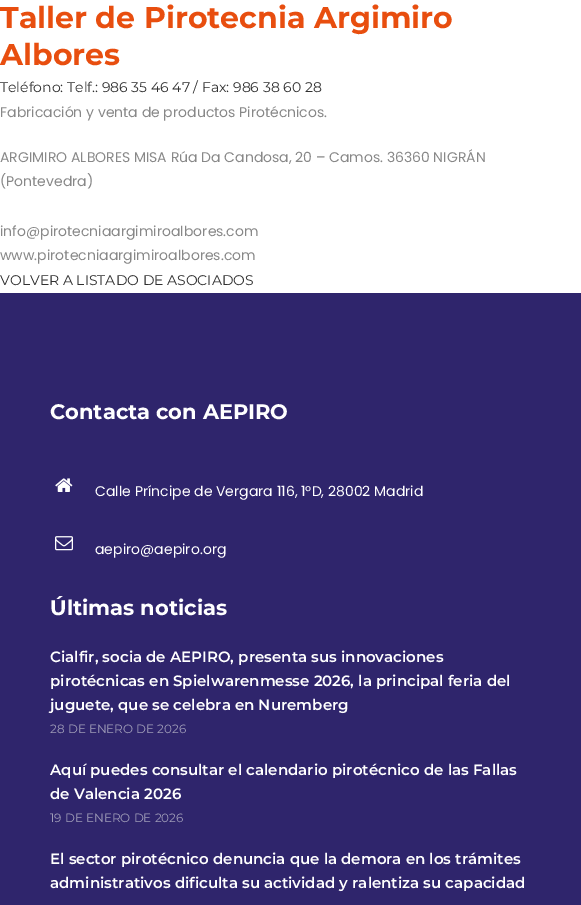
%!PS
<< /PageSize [581 905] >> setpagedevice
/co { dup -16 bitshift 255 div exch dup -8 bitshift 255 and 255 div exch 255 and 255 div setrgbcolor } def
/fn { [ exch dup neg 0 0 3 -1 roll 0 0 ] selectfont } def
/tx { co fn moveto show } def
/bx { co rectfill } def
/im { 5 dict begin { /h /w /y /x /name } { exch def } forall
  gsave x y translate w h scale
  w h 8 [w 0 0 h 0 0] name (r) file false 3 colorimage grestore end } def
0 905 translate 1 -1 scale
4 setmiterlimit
0 0 581 905 16#FFFFFF bx
0 293 581 612 16#2F256C bx
(media/1.raw) 55 478 18 14 im
(media/2.raw) 55 536 18 15 im
(Taller de Pirotecnia Argimiro) 0 28 /Montserrat-Bold 30 16#E84E0F tx
(Albores) 0 65 /Montserrat-Bold 30 16#E84E0F tx
(Teléfono: Telf.: 986 35 46 47 / Fax: 986 38 60 28) 0 92 /Montserrat-Regular 14 16#303030 tx
(Fabricación y venta de productos Pirotécnicos.) 0 117 /Poppins-Regular 14 16#888888 tx
(ARGIMIRO ALBORES MISA Rúa Da Candosa, 20 – Camos. 36360 NIGRÁN) 0 162 /Poppins-Regular 14 16#888888 tx
(\(Pontevedra\)) 0 186 /Poppins-Regular 14 16#888888 tx
(info@pirotecniaargimiroalbores.com) 0 236 /Poppins-Regular 14 16#888888 tx
(www.pirotecniaargimiroalbores.com) 0 260 /Poppins-Regular 14 16#888888 tx
(VOLVER A LISTADO DE ASOCIADOS) 0 285 /Montserrat-Regular 14 16#303030 tx
(Contacta con AEPIRO) 50 419 /Montserrat-Bold 21 16#FFFFFF tx
(Calle Príncipe de Vergara 116, 1ºD, 28002 Madrid) 95 496 /Poppins-Regular 14 16#FFFFFF tx
(aepiro@aepiro.org) 95 554 /Poppins-Regular 14 16#FFFFFF tx
(Últimas noticias) 50 615 /Montserrat-Bold 21 16#FFFFFF tx
(Cialfir, socia de AEPIRO, presenta sus innovaciones) 50 662 /Montserrat-SemiBold 15 16#FFFFFF tx
(pirotécnicas en Spielwarenmesse 2026, la principal feria del) 50 686 /Montserrat-SemiBold 15 16#FFFFFF tx
(juguete, que se celebra en Nuremberg) 50 710 /Montserrat-SemiBold 15 16#FFFFFF tx
(28 DE ENERO DE 2026) 50 733 /Montserrat-Regular 12 16#9F9CB8 tx
(Aquí puedes consultar el calendario pirotécnico de las Fallas) 50 775 /Montserrat-SemiBold 15 16#FFFFFF tx
(de Valencia 2026) 50 799 /Montserrat-SemiBold 15 16#FFFFFF tx
(19 DE ENERO DE 2026) 50 822 /Montserrat-Regular 12 16#9F9CB8 tx
(El sector pirotécnico denuncia que la demora en los trámites) 50 864 /Montserrat-SemiBold 15 16#FFFFFF tx
(administrativos dificulta su actividad y ralentiza su capacidad) 50 888 /Montserrat-SemiBold 15 16#FFFFFF tx
showpage
